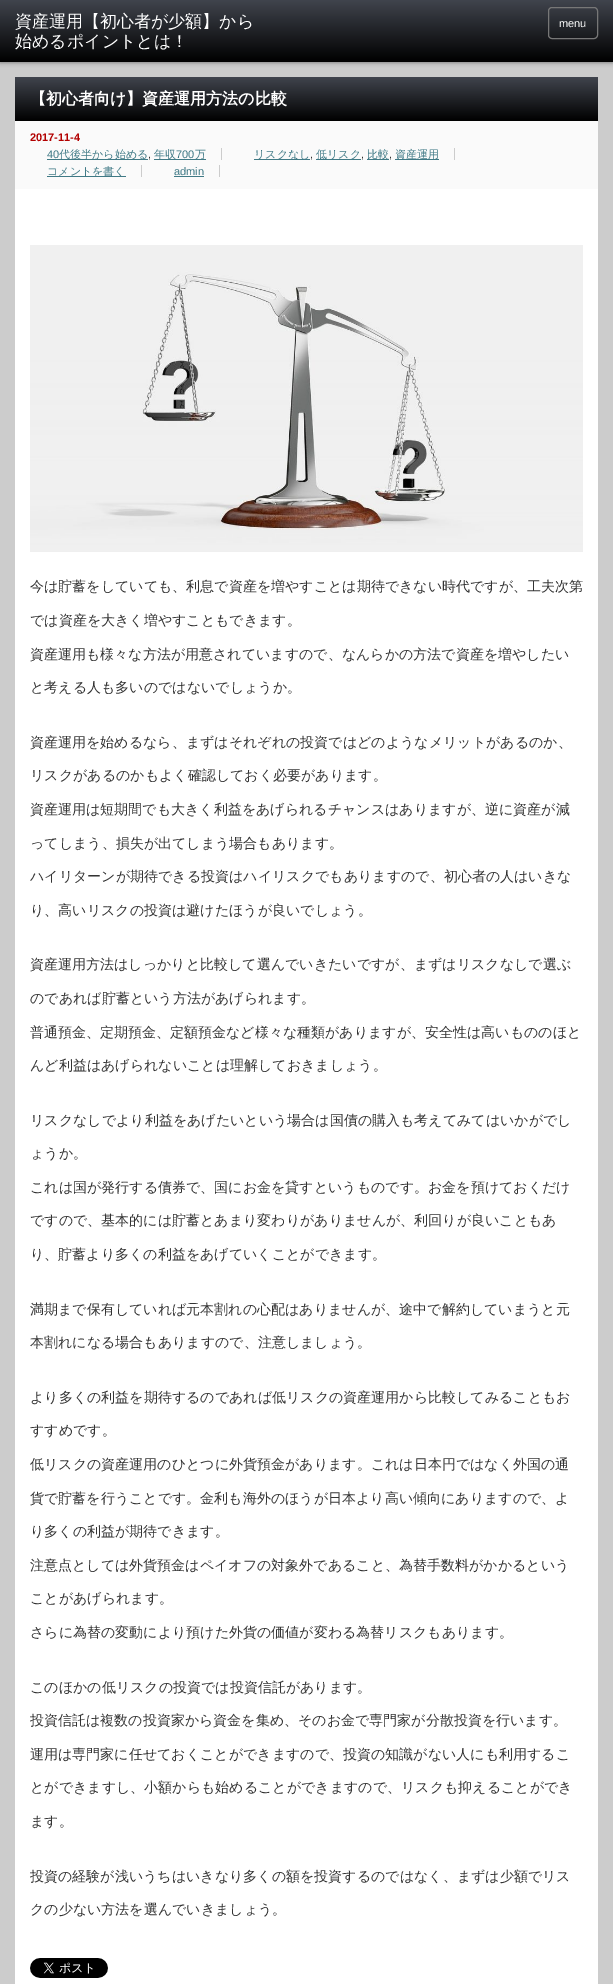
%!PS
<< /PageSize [613 1984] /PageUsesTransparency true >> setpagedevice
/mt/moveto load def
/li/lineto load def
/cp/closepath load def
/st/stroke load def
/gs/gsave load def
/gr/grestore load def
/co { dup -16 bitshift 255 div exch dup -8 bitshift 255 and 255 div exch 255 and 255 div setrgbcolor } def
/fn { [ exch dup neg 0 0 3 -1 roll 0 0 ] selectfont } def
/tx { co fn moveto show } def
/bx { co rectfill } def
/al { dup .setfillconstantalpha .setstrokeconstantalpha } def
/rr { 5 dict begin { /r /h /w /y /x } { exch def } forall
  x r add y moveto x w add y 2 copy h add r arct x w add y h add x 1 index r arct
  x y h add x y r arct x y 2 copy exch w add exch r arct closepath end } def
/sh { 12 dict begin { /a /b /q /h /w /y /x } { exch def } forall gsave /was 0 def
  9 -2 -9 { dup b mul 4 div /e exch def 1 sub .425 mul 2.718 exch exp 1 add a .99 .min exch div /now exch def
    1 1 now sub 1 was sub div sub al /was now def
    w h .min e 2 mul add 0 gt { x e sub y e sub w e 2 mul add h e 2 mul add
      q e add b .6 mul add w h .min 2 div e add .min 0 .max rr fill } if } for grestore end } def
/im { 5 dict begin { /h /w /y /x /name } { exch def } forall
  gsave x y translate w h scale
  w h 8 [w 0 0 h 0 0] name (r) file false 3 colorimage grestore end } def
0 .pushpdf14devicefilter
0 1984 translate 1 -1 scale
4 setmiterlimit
0 0 613 1984 16#CCCCCC bx
16#000000 co
0 0 613 62 0 2.5 .5 sh
gs 0 0 mt 613 0 li 613 62 li 0 62 li cp clip newpath
<< /ShadingType 2 /ColorSpace /DeviceRGB /Coords [307 0 307 62] /Extend [true true] /Function << /FunctionType 2 /Domain [0 1] /C0 [.251 .267 .302] /C1 [0 0 0] /N 1 >> >> shfill gr
16#777777 co
548.5 7.5 49 31 3.5 rr st
gs 15 77 mt 598 77 li 598 121 li 15 121 li cp clip newpath
<< /ShadingType 2 /ColorSpace /DeviceRGB /Coords [15 77 15 121] /Extend [true true] /Function << /FunctionType 2 /Domain [0 1] /C0 [.251 .267 .302] /C1 [0 0 0] /N 1 >> >> shfill gr
15 189 583 1795 16#FFFFFF bx
15 121 583 68 16#FAFAFA bx
221 148 1 12 16#CCCCCC bx
47 159 101 1 16#3F7985 bx
154 159 52 1 16#3F7985 bx
454 148 1 12 16#CCCCCC bx
254 159 56 1 16#3F7985 bx
316 159 45 1 16#3F7985 bx
367 159 22 1 16#3F7985 bx
395 159 44 1 16#3F7985 bx
141 165 1 12 16#CCCCCC bx
47 176 79 1 16#3F7985 bx
219 165 1 12 16#CCCCCC bx
174 176 30 1 16#3F7985 bx
(media/1.raw) 30 245 553 307 im
(media/2.raw) 30 1958 78 20 im
(資産運用【初心者が少額】から) 15 27 /WenQuanYiZenHei-Medium 17 16#FFFFFF tx
(始めるポイントとは！) 15 47 /WenQuanYiZenHei-Medium 17 16#FFFFFF tx
(menu) 559 27 /LiberationSans-Regular 11 16#FFFFFF tx
(【初心者向け】資産運用方法の比較) 30 104 /WenQuanYiZenHei-Bold 16 16#FFFFFF tx
(2017-11-4) 30 141 /LiberationSans-Bold 11 16#B20000 tx
(40) 47 158 /LiberationSans-Regular 11 16#3F7985 tx
(代後半から始める) 59 158 /WenQuanYiZenHei-Medium 11 16#3F7985 tx
(,) 148 158 /LiberationSans-Regular 11 16#333333 tx
(年収) 154 158 /WenQuanYiZenHei-Medium 11 16#3F7985 tx
(700) 176 158 /LiberationSans-Regular 11 16#3F7985 tx
(万) 195 158 /WenQuanYiZenHei-Medium 11 16#3F7985 tx
(リスクなし) 254 158 /WenQuanYiZenHei-Medium 11 16#3F7985 tx
(,) 310 158 /LiberationSans-Regular 11 16#333333 tx
(低リスク) 316 158 /WenQuanYiZenHei-Medium 11 16#3F7985 tx
(,) 361 158 /LiberationSans-Regular 11 16#333333 tx
(比較) 367 158 /WenQuanYiZenHei-Medium 11 16#3F7985 tx
(,) 389 158 /LiberationSans-Regular 11 16#333333 tx
(資産運用) 395 158 /WenQuanYiZenHei-Medium 11 16#3F7985 tx
(コメントを書く) 47 175 /WenQuanYiZenHei-Medium 11 16#3F7985 tx
(admin) 174 175 /LiberationSans-Regular 11 16#3F7985 tx
(今は貯蓄をしていても、利息で資産を増やすことは期待できない時代ですが、工夫次第) 30 591 /WenQuanYiZenHei-Medium 14 16#333333 tx
(では資産を大きく増やすこともできます。) 30 625 /WenQuanYiZenHei-Medium 14 16#333333 tx
(資産運用も様々な方法が用意されていますので、なんらかの方法で資産を増やしたい) 30 659 /WenQuanYiZenHei-Medium 14 16#333333 tx
(と考える人も多いのではないでしょうか。) 30 692 /WenQuanYiZenHei-Medium 14 16#333333 tx
(資産運用を始めるなら、まずはそれぞれの投資ではどのようなメリットがあるのか、) 30 747 /WenQuanYiZenHei-Medium 14 16#333333 tx
(リスクがあるのかもよく確認しておく必要があります。) 30 780 /WenQuanYiZenHei-Medium 14 16#333333 tx
(資産運用は短期間でも大きく利益をあげられるチャンスはありますが、逆に資産が減) 30 814 /WenQuanYiZenHei-Medium 14 16#333333 tx
(ってしまう、損失が出てしまう場合もあります。) 30 848 /WenQuanYiZenHei-Medium 14 16#333333 tx
(ハイリターンが期待できる投資はハイリスクでもありますので、初心者の人はいきな) 30 881 /WenQuanYiZenHei-Medium 14 16#333333 tx
(り、高いリスクの投資は避けたほうが良いでしょう。) 30 915 /WenQuanYiZenHei-Medium 14 16#333333 tx
(資産運用方法はしっかりと比較して選んでいきたいですが、まずはリスクなしで選ぶ) 30 969 /WenQuanYiZenHei-Medium 14 16#333333 tx
(のであれば貯蓄という方法があげられます。) 30 1003 /WenQuanYiZenHei-Medium 14 16#333333 tx
(普通預金、定期預金、定額預金など様々な種類がありますが、安全性は高いもののほと) 30 1037 /WenQuanYiZenHei-Medium 14 16#333333 tx
(んど利益はあげられないことは理解しておきましょう。) 30 1070 /WenQuanYiZenHei-Medium 14 16#333333 tx
(リスクなしでより利益をあげたいという場合は国債の購入も考えてみてはいかがでし) 30 1125 /WenQuanYiZenHei-Medium 14 16#333333 tx
(ょうか。) 30 1158 /WenQuanYiZenHei-Medium 14 16#333333 tx
(これは国が発行する債券で、国にお金を貸すというものです。お金を預けておくだけ) 30 1192 /WenQuanYiZenHei-Medium 14 16#333333 tx
(ですので、基本的には貯蓄とあまり変わりがありませんが、利回りが良いこともあ) 30 1225 /WenQuanYiZenHei-Medium 14 16#333333 tx
(り、貯蓄より多くの利益をあげていくことができます。) 30 1259 /WenQuanYiZenHei-Medium 14 16#333333 tx
(満期まで保有していれば元本割れの心配はありませんが、途中で解約していまうと元) 30 1314 /WenQuanYiZenHei-Medium 14 16#333333 tx
(本割れになる場合もありますので、注意しましょう。) 30 1347 /WenQuanYiZenHei-Medium 14 16#333333 tx
(より多くの利益を期待するのであれば低リスクの資産運用から比較してみることもお) 30 1402 /WenQuanYiZenHei-Medium 14 16#333333 tx
(すすめです。) 30 1435 /WenQuanYiZenHei-Medium 14 16#333333 tx
(低リスクの資産運用のひとつに外貨預金があります。これは日本円ではなく外国の通) 30 1469 /WenQuanYiZenHei-Medium 14 16#333333 tx
(貨で貯蓄を行うことです。金利も海外のほうが日本より高い傾向にありますので、よ) 30 1503 /WenQuanYiZenHei-Medium 14 16#333333 tx
(り多くの利益が期待できます。) 30 1536 /WenQuanYiZenHei-Medium 14 16#333333 tx
(注意点としては外貨預金はペイオフの対象外であること、為替手数料がかかるという) 30 1570 /WenQuanYiZenHei-Medium 14 16#333333 tx
(ことがあげられます。) 30 1603 /WenQuanYiZenHei-Medium 14 16#333333 tx
(さらに為替の変動により預けた外貨の価値が変わる為替リスクもあります。) 30 1637 /WenQuanYiZenHei-Medium 14 16#333333 tx
(このほかの低リスクの投資では投資信託があります。) 30 1692 /WenQuanYiZenHei-Medium 14 16#333333 tx
(投資信託は複数の投資家から資金を集め、そのお金で専門家が分散投資を行います。) 30 1725 /WenQuanYiZenHei-Medium 14 16#333333 tx
(運用は専門家に任せておくことができますので、投資の知識がない人にも利用するこ) 30 1759 /WenQuanYiZenHei-Medium 14 16#333333 tx
(とができますし、小額からも始めることができますので、リスクも抑えることができ) 30 1792 /WenQuanYiZenHei-Medium 14 16#333333 tx
(ます。) 30 1826 /WenQuanYiZenHei-Medium 14 16#333333 tx
(投資の経験が浅いうちはいきなり多くの額を投資するのではなく、まずは少額でリス) 30 1881 /WenQuanYiZenHei-Medium 14 16#333333 tx
(クの少ない方法を選んでいきましょう。) 30 1914 /WenQuanYiZenHei-Medium 14 16#333333 tx
.poppdf14devicefilter showpage
